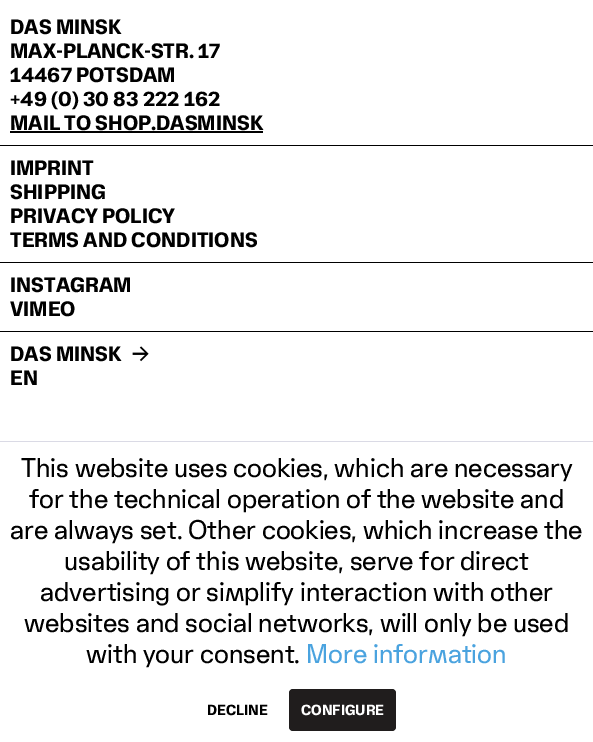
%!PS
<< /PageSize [593 742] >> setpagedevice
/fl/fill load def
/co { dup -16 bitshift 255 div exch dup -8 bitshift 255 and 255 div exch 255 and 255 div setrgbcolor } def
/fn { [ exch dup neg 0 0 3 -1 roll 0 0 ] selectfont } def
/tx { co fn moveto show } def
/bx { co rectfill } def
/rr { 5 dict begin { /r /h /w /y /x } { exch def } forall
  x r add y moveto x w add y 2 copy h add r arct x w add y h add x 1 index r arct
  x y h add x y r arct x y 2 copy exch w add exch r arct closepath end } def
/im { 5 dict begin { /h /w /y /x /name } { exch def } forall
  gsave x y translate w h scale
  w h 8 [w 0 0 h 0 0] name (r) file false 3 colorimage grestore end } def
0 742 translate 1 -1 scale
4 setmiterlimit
0 0 593 742 16#FFFFFF bx
10 131 253 2 16#000000 bx
0 145 593 1 16#000000 bx
0 262 593 1 16#000000 bx
0 331 593 1 16#000000 bx
(media/1.raw) 132 346 17 16 im
0 441 593 1 16#DADAE5 bx
16#201D1D co
289 689 107 42 4 rr fl
(DAS MINSK) 10 34 /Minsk-Bold 20 16#000000 tx
(MAX-PLANCK-STR. 17) 10 58 /Minsk-Bold 20 16#000000 tx
(14467 POTSDAM) 10 82 /Minsk-Bold 20 16#000000 tx
(+49 \(0\) 30 83 222 162) 10 106 /Minsk-Bold 20 16#000000 tx
(MAIL TO SHOP.DASMINSK) 10 130 /Minsk-Bold 20 16#000000 tx
(IMPRINT) 10 175 /Minsk-Bold 20 16#000000 tx
(SHIPPING) 10 199 /Minsk-Bold 20 16#000000 tx
(PRIVACY POLICY) 10 223 /Minsk-Bold 20 16#000000 tx
(TERMS AND CONDITIONS) 10 247 /Minsk-Bold 20 16#000000 tx
(INSTAGRAM) 10 292 /Minsk-Bold 20 16#000000 tx
(VIMEO) 10 316 /Minsk-Bold 20 16#000000 tx
(DAS MINSK) 10 361 /Minsk-Bold 20 16#000000 tx
(EN) 10 385 /Minsk-Bold 20 16#000000 tx
(This website uses cookies, which are necessary) 21 477 /Minsk-Regular 26 16#000000 tx
(for the technical operation of the website and) 29 508 /Minsk-Regular 26 16#000000 tx
(are always set. Other cookies, which increase the) 10 539 /Minsk-Regular 26 16#000000 tx
(usability of this website, serve for direct) 64 570 /Minsk-Regular 26 16#000000 tx
(advertising or simplify interaction with other) 40 601 /Minsk-Regular 26 16#000000 tx
(websites and social networks, will only be used) 24 632 /Minsk-Regular 26 16#000000 tx
(with your consent.) 86 663 /Minsk-Regular 26 16#000000 tx
(More information) 306 663 /Minsk-Regular 26 16#4AA3DF tx
(DECLINE) 207 715 /Minsk-Bold 14 16#000000 tx
(CONFIGURE) 301 715 /Minsk-Bold 14 16#FFFFFF tx
showpage
